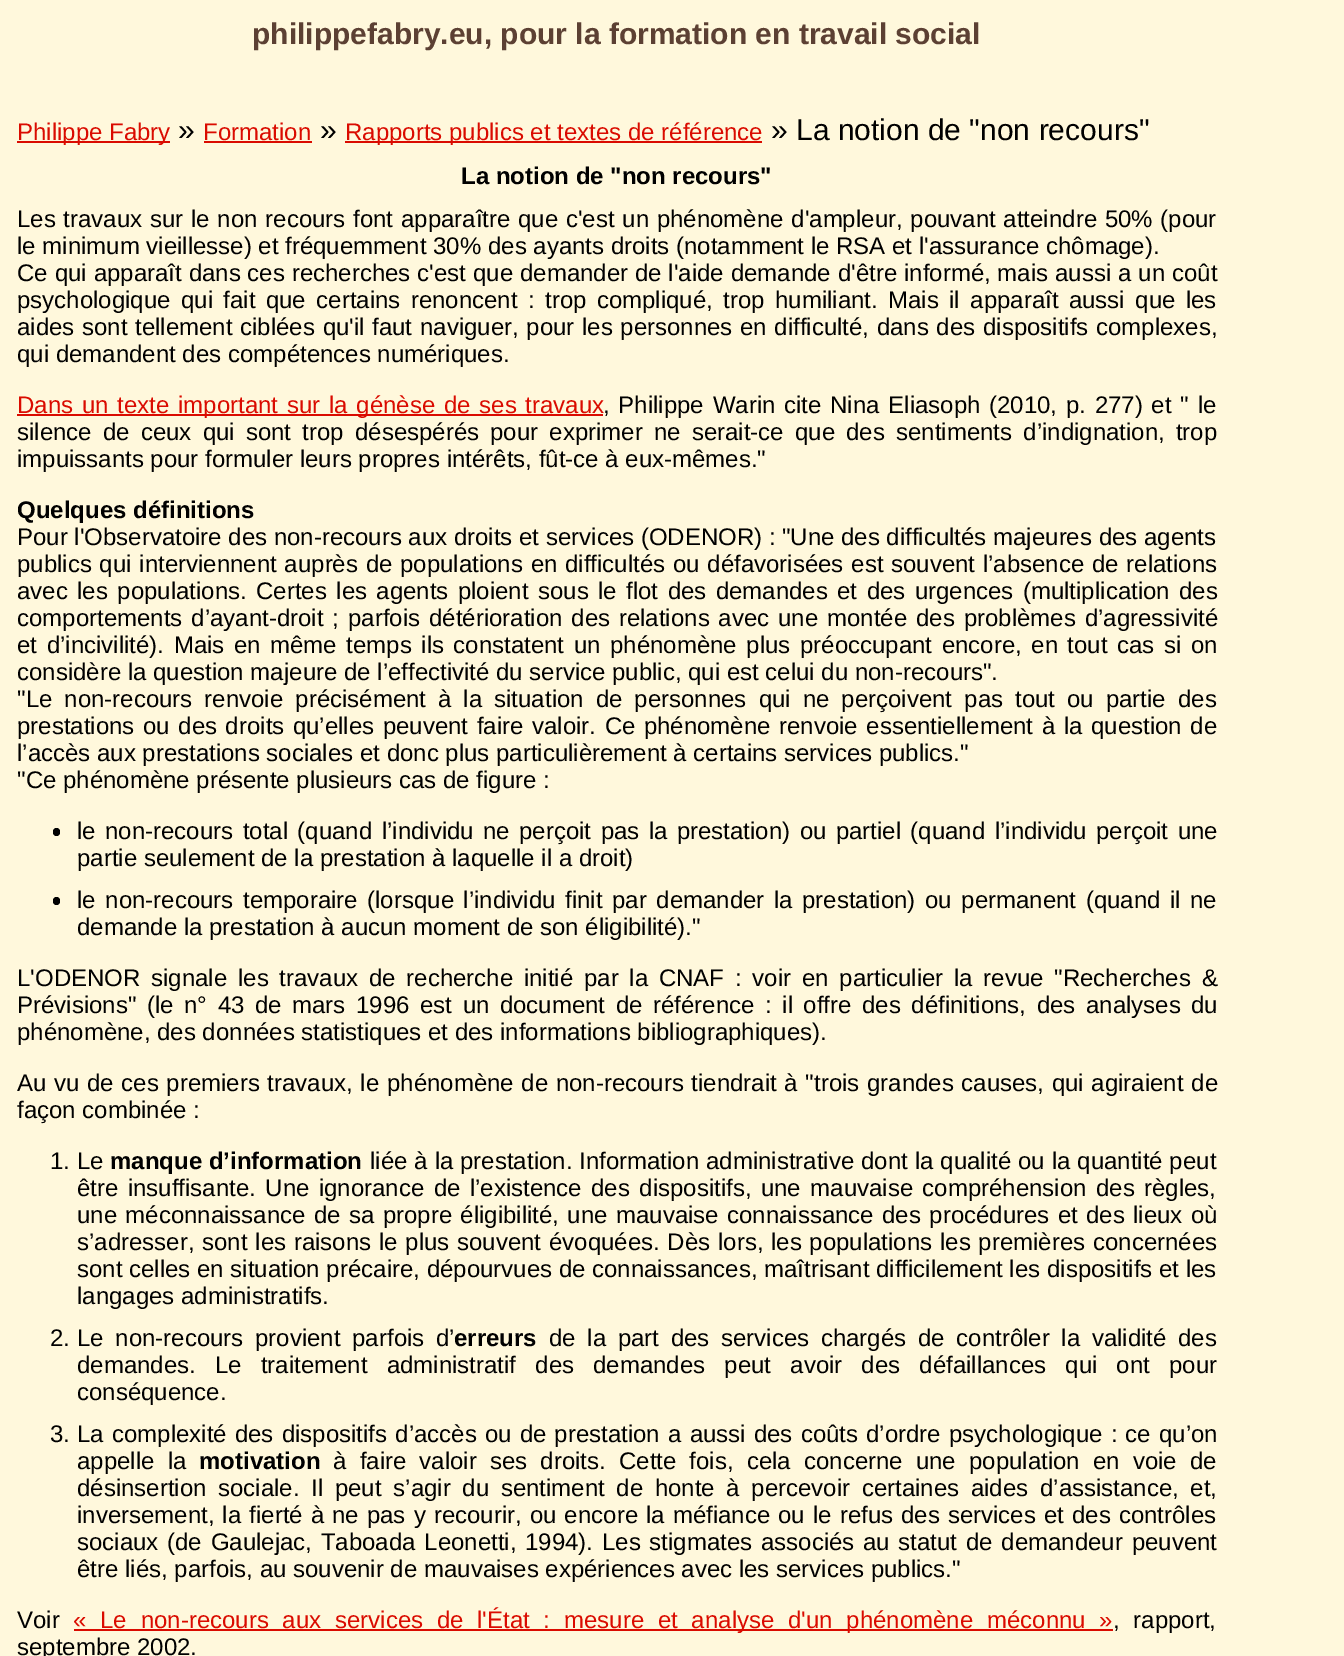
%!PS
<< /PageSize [1344 1656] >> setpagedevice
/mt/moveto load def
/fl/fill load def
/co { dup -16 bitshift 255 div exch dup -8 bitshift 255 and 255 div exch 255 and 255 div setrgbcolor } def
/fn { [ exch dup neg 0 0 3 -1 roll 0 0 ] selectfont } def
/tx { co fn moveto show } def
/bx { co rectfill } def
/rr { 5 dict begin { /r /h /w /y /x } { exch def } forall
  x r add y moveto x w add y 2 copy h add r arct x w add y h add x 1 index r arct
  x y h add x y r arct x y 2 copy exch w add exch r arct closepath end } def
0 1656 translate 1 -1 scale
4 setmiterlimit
0 0 1344 1656 16#FFF8DC bx
17 141 153 2 16#DA0B00 bx
204 141 108 2 16#DA0B00 bx
345 141 417 2 16#DA0B00 bx
17 414 586 2 16#DA0B00 bx
16#000000 co
53 828 7 8 3.5 rr fl
53 897 7 8 3.5 rr fl
74 1629 1039 2 16#DA0B00 bx
(philippefabry.eu, pour la formation en travail social) 252 44 /LiberationSans-Bold 30 16#5C4033 tx
(Philippe Fabry) 17 140 /LiberationSans-Regular 24 16#DA0B00 tx
(») 178 140 /LiberationSans-Regular 30 16#000000 tx
(Formation) 203 140 /LiberationSans-Regular 24 16#DA0B00 tx
(») 320 140 /LiberationSans-Regular 30 16#000000 tx
(Rapports publics et textes de référence) 345 140 /LiberationSans-Regular 24 16#DA0B00 tx
(» La notion de "non recours") 771 140 /LiberationSans-Regular 30 16#000000 tx
(La notion de "non recours") 461 184 /LiberationSans-Bold 24 16#000000 tx
/LiberationSans-Regular 24 fn
17 227 mt 1.1 0 32 (Les travaux sur le non recours font apparaître que c'est un phénomène d'ampleur, pouvant atteindre 50% \(pour) widthshow
(le minimum vieillesse\) et fréquemment 30% des ayants droits \(notamment le RSA et l'assurance chômage\).) 17 254 /LiberationSans-Regular 24 16#000000 tx
17 281 mt .25 0 32 (Ce qui apparaît dans ces recherches c'est que demander de l'aide demande d'être informé, mais aussi a un coût) widthshow
17 308 mt 3.75 0 32 (psychologique qui fait que certains renoncent : trop compliqué, trop humiliant. Mais il apparaît aussi que les) widthshow
17 335 mt 1 0 32 (aides sont tellement ciblées qu'il faut naviguer, pour les personnes en difficulté, dans des dispositifs complexes,) widthshow
(qui demandent des compétences numériques.) 17 362 /LiberationSans-Regular 24 16#000000 tx
16#DA0B00 co
17 413 mt 2.1 0 32 (Dans un texte important sur la génèse de ses travaux) widthshow
16#000000 co
603 413 mt 2.1 0 32 (, Philippe Warin cite Nina Eliasoph \(2010, p. 277\) et " le) widthshow
17 440 mt 4.5 0 32 (silence de ceux qui sont trop désespérés pour exprimer ne serait-ce que des sentiments d’indignation, trop) widthshow
(impuissants pour formuler leurs propres intérêts, fût-ce à eux-mêmes.") 17 467 /LiberationSans-Regular 24 16#000000 tx
(Quelques définitions) 17 518 /LiberationSans-Bold 24 16#000000 tx
(Pour l'Observatoire des non-recours aux droits et services \(ODENOR\) : "Une des difficultés majeures des agents) 17 545 /LiberationSans-Regular 24 16#000000 tx
17 572 mt 1.1 0 32 (publics qui interviennent auprès de populations en difficultés ou défavorisées est souvent l’absence de relations) widthshow
17 599 mt 2.75 0 32 (avec les populations. Certes les agents ploient sous le flot des demandes et des urgences \(multiplication des) widthshow
17 626 mt 2.25 0 32 (comportements d’ayant-droit ; parfois détérioration des relations avec une montée des problèmes d’agressivité) widthshow
17 653 mt 2.9 0 32 (et d’incivilité\). Mais en même temps ils constatent un phénomène plus préoccupant encore, en tout cas si on) widthshow
(considère la question majeure de l’effectivité du service public, qui est celui du non-recours".) 17 680 /LiberationSans-Regular 24 16#000000 tx
17 707 mt 5.4 0 32 ("Le non-recours renvoie précisément à la situation de personnes qui ne perçoivent pas tout ou partie des) widthshow
17 734 mt 1.9 0 32 (prestations ou des droits qu’elles peuvent faire valoir. Ce phénomène renvoie essentiellement à la question de) widthshow
(l’accès aux prestations sociales et donc plus particulièrement à certains services publics.") 17 761 /LiberationSans-Regular 24 16#000000 tx
("Ce phénomène présente plusieurs cas de figure :) 17 788 /LiberationSans-Regular 24 16#000000 tx
77 839 mt 2.75 0 32 (le non-recours total \(quand l’individu ne perçoit pas la prestation\) ou partiel \(quand l’individu perçoit une) widthshow
(partie seulement de la prestation à laquelle il a droit\)) 77 866 /LiberationSans-Regular 24 16#000000 tx
77 908 mt 2.9 0 32 (le non-recours temporaire \(lorsque l’individu finit par demander la prestation\) ou permanent \(quand il ne) widthshow
(demande la prestation à aucun moment de son éligibilité\).") 77 935 /LiberationSans-Regular 24 16#000000 tx
17 986 mt 4.1 0 32 (L'ODENOR signale les travaux de recherche initié par la CNAF : voir en particulier la revue "Recherches &) widthshow
17 1013 mt 3.9 0 32 (Prévisions" \(le n° 43 de mars 1996 est un document de référence : il offre des définitions, des analyses du) widthshow
(phénomène, des données statistiques et des informations bibliographiques\).) 17 1040 /LiberationSans-Regular 24 16#000000 tx
17 1091 mt 1 0 32 (Au vu de ces premiers travaux, le phénomène de non-recours tiendrait à "trois grandes causes, qui agiraient de) widthshow
(façon combinée :) 17 1118 /LiberationSans-Regular 24 16#000000 tx
(1. Le) 50 1169 /LiberationSans-Regular 24 16#000000 tx
(manque d’information) 110 1169 /LiberationSans-Bold 24 16#000000 tx
/LiberationSans-Regular 24 fn
370 1169 mt .25 0 32 (liée à la prestation. Information administrative dont la qualité ou la quantité peut) widthshow
77 1196 mt 2.75 0 32 (être insuffisante. Une ignorance de l’existence des dispositifs, une mauvaise compréhension des règles,) widthshow
77 1223 mt 1.7 0 32 (une méconnaissance de sa propre éligibilité, une mauvaise connaissance des procédures et des lieux où) widthshow
77 1250 mt 1.1 0 32 (s’adresser, sont les raisons le plus souvent évoquées. Dès lors, les populations les premières concernées) widthshow
(sont celles en situation précaire, dépourvues de connaissances, maîtrisant difficilement les dispositifs et les) 77 1277 /LiberationSans-Regular 24 16#000000 tx
(langages administratifs.) 77 1304 /LiberationSans-Regular 24 16#000000 tx
(2.) 50 1346 /LiberationSans-Regular 24 16#000000 tx
77 1346 mt 5 0 32 (Le non-recours provient parfois d’) widthshow
(erreurs) 454 1346 /LiberationSans-Bold 24 16#000000 tx
/LiberationSans-Regular 24 fn
549 1346 mt 5 0 32 (de la part des services chargés de contrôler la validité des) widthshow
77 1373 mt 12.5 0 32 (demandes. Le traitement administratif des demandes peut avoir des défaillances qui ont pour) widthshow
(conséquence.) 77 1400 /LiberationSans-Regular 24 16#000000 tx
(3.) 50 1442 /LiberationSans-Regular 24 16#000000 tx
77 1442 mt 1.5 0 32 (La complexité des dispositifs d’accès ou de prestation a aussi des coûts d’ordre psychologique : ce qu’on) widthshow
77 1469 mt 6.5 0 32 (appelle la) widthshow
(motivation) 199 1469 /LiberationSans-Bold 24 16#000000 tx
/LiberationSans-Regular 24 fn
333 1469 mt 6.5 0 32 (à faire valoir ses droits. Cette fois, cela concerne une population en voie de) widthshow
77 1496 mt 5 0 32 (désinsertion sociale. Il peut s’agir du sentiment de honte à percevoir certaines aides d’assistance, et,) widthshow
77 1523 mt 1.4 0 32 (inversement, la fierté à ne pas y recourir, ou encore la méfiance ou le refus des services et des contrôles) widthshow
77 1550 mt 2.1 0 32 (sociaux \(de Gaulejac, Taboada Leonetti, 1994\). Les stigmates associés au statut de demandeur peuvent) widthshow
(être liés, parfois, au souvenir de mauvaises expériences avec les services publics.") 77 1577 /LiberationSans-Regular 24 16#000000 tx
(Voir) 17 1628 /LiberationSans-Regular 24 16#000000 tx
16#DA0B00 co
73 1628 mt 7.1 0 32 (« Le non-recours aux services de l'État : mesure et analyse d'un phénomène méconnu ») widthshow
16#000000 co
1113 1628 mt 7.1 0 32 (, rapport,) widthshow
(septembre 2002.) 17 1655 /LiberationSans-Regular 24 16#000000 tx
showpage
